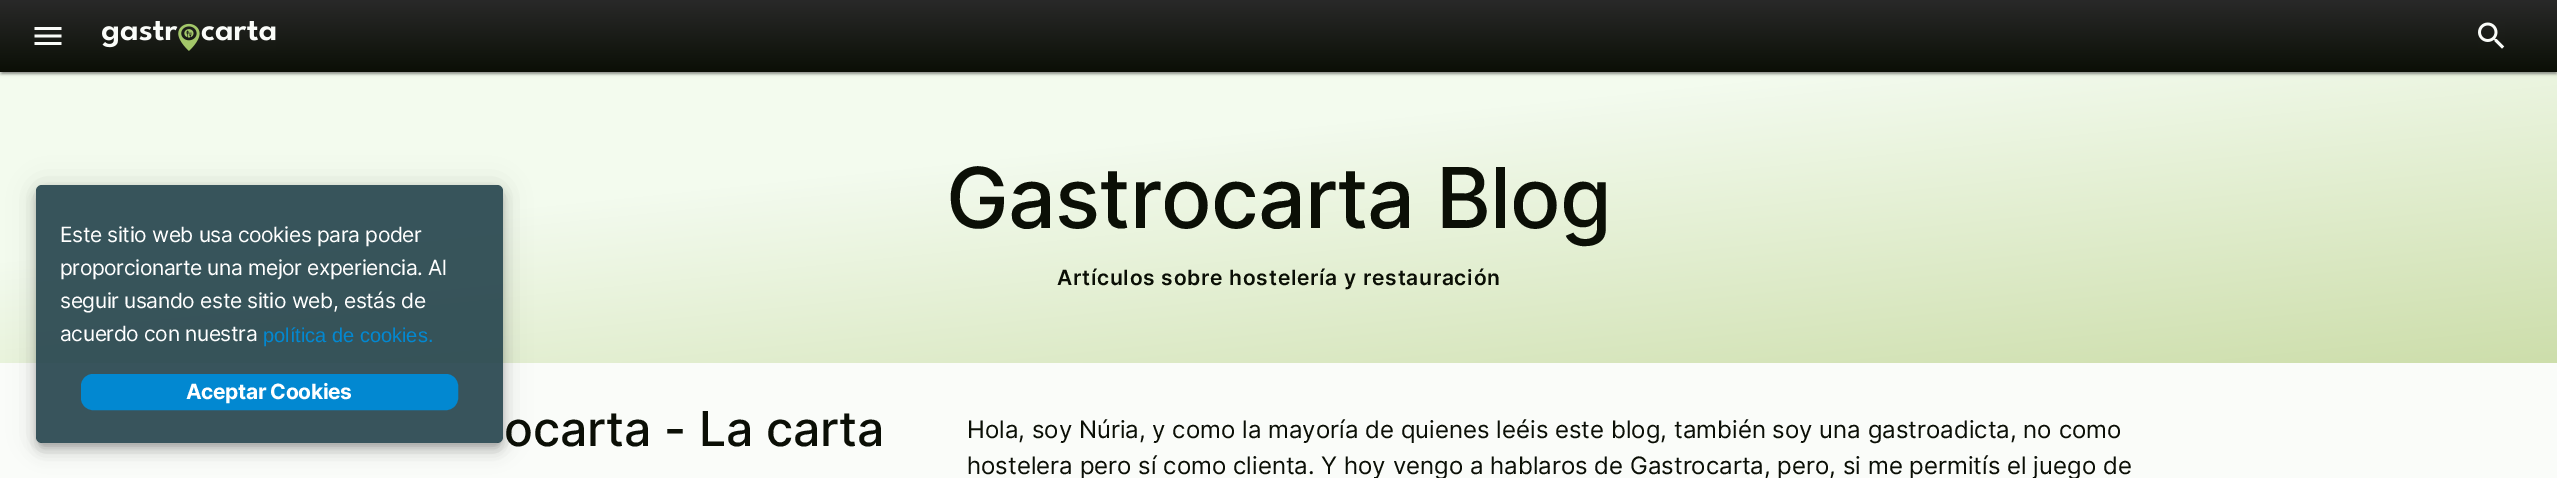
%!PS
<< /PageSize [2557 478] /PageUsesTransparency true >> setpagedevice
/mt/moveto load def
/li/lineto load def
/ct/curveto load def
/cp/closepath load def
/fl/fill load def
/st/stroke load def
/gs/gsave load def
/gr/grestore load def
/lw/setlinewidth load def
/co { dup -16 bitshift 255 div exch dup -8 bitshift 255 and 255 div exch 255 and 255 div setrgbcolor } def
/fn { [ exch dup neg 0 0 3 -1 roll 0 0 ] selectfont } def
/tx { co fn moveto show } def
/bx { co rectfill } def
/al { dup .setfillconstantalpha .setstrokeconstantalpha } def
/rr { 5 dict begin { /r /h /w /y /x } { exch def } forall
  x r add y moveto x w add y 2 copy h add r arct x w add y h add x 1 index r arct
  x y h add x y r arct x y 2 copy exch w add exch r arct closepath end } def
/sh { 12 dict begin { /a /b /q /h /w /y /x } { exch def } forall gsave /was 0 def
  9 -2 -9 { dup b mul 4 div /e exch def 1 sub .425 mul 2.718 exch exp 1 add a .99 .min exch div /now exch def
    1 1 now sub 1 was sub div sub al /was now def
    w h .min e 2 mul add 0 gt { x e sub y e sub w e 2 mul add h e 2 mul add
      q e add b .6 mul add w h .min 2 div e add .min 0 .max rr fill } if } for grestore end } def
/im { 5 dict begin { /h /w /y /x /name } { exch def } forall
  gsave x y translate w h scale
  w h 8 [w 0 0 h 0 0] name (r) file false 3 colorimage grestore end } def
0 .pushpdf14devicefilter
0 478 translate 1 -1 scale
4 setmiterlimit
0 0 2557 478 16#FAFCF9 bx
gs 0 72 mt 2557 72 li 2557 363 li 0 363 li cp clip newpath
<< /ShadingType 2 /ColorSpace /DeviceRGB /Coords [1250 -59 1308 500] /Extend [true true] /Function << /FunctionType 3 /Domain [0 1] /Functions [<< /FunctionType 2 /Domain [0 1] /C0 [.953 .984 .933] /C1 [.953 .984 .933] /N 1 >> << /FunctionType 2 /Domain [0 1] /C0 [.953 .984 .933] /C1 [.8 .867 .667] /N 1 >>] /Bounds [.34] /Encode [0 1 0 1] >> >> shfill gr
gs
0 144 mt 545 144 li 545 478 li 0 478 li cp 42 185 mt 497 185 li 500.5 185 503 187.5 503 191 ct 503 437 li 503 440.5 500.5 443 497 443 ct 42 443 li 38.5 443 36 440.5 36 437 ct 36 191 li 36 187.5 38.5 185 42 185 ct cp eoclip newpath
16#000000 co
36 186 467 258 6 13.5 .12 sh
gr
gs
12 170 mt 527 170 li 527 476 li 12 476 li cp 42 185 mt 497 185 li 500.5 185 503 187.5 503 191 ct 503 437 li 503 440.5 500.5 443 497 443 ct 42 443 li 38.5 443 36 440.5 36 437 ct 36 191 li 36 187.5 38.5 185 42 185 ct cp eoclip newpath
16#000000 co
36 194 467 258 6 7.5 .14 sh
gr
gs
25 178 mt 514 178 li 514 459 li 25 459 li cp 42 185 mt 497 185 li 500.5 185 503 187.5 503 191 ct 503 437 li 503 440.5 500.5 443 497 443 ct 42 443 li 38.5 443 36 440.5 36 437 ct 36 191 li 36 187.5 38.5 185 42 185 ct cp eoclip newpath
16#000000 co
38 191 463 255 5 4 .2 sh
gr
0.9 al
16#23424B co
36 185 467 258 6 rr fl
1 al
16#0288D1 co
82 375 375 34 11 rr gs fl gr
2 lw
st
16#000000 co
0 2 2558 72 0 2 .12 sh
0 2 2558 72 0 1 .14 sh
2 5 2554 69 0 1 .2 sh
gs 0 0 mt 2557 0 li 2557 72 li 0 72 li cp clip newpath
<< /ShadingType 2 /ColorSpace /DeviceRGB /Coords [1279 0 1279 72] /Extend [true true] /Function << /FunctionType 2 /Domain [0 1] /C0 [.161 .161 .161] /C1 [.043 .059 .024] /N 1 >> >> shfill gr
(media/1.raw) 34 27 28 18 im
(media/2.raw) 102 21 174 30 im
(media/3.raw) 2478 22 27 27 im
/Inter-Regular 21 fn
16#FFFFFF co
60 242 mt -.4 0 (Este sitio web usa cookies para poder) ashow
60 275 mt -.4 0 (proporcionarte una mejor experiencia. Al) ashow
60 308 mt -.4 0 (seguir usando este sitio web, estás de) ashow
60 341 mt -.4 0 (acuerdo con nuestra) ashow
(política de cookies.) 263 342 /LiberationSans-Regular 20 16#0288D1 tx
/Inter-Bold 21 fn
16#FFFFFF co
186 399 mt -.4 0 (Aceptar Cookies) ashow
/Inter-Medium 84 fn
16#0B0F06 co
946 228 mt -.75 0 (Gastrocarta Blog) ashow
/Inter-SemiBold 21 fn
1057 285 mt .75 0 (Artículos sobre hostelería y restauración) ashow
(ocarta - La carta) 504 446 /Inter-Medium 48 16#0B0F06 tx
(Hola, soy Núria, y como la mayoría de quienes leéis este blog, también soy una gastroadicta, no como) 967 438 /Inter-Regular 24 16#0B0F06 tx
(hostelera pero sí como clienta. Y hoy vengo a hablaros de Gastrocarta, pero, si me permitís el juego de) 967 474 /Inter-Regular 24 16#0B0F06 tx
.poppdf14devicefilter showpage
